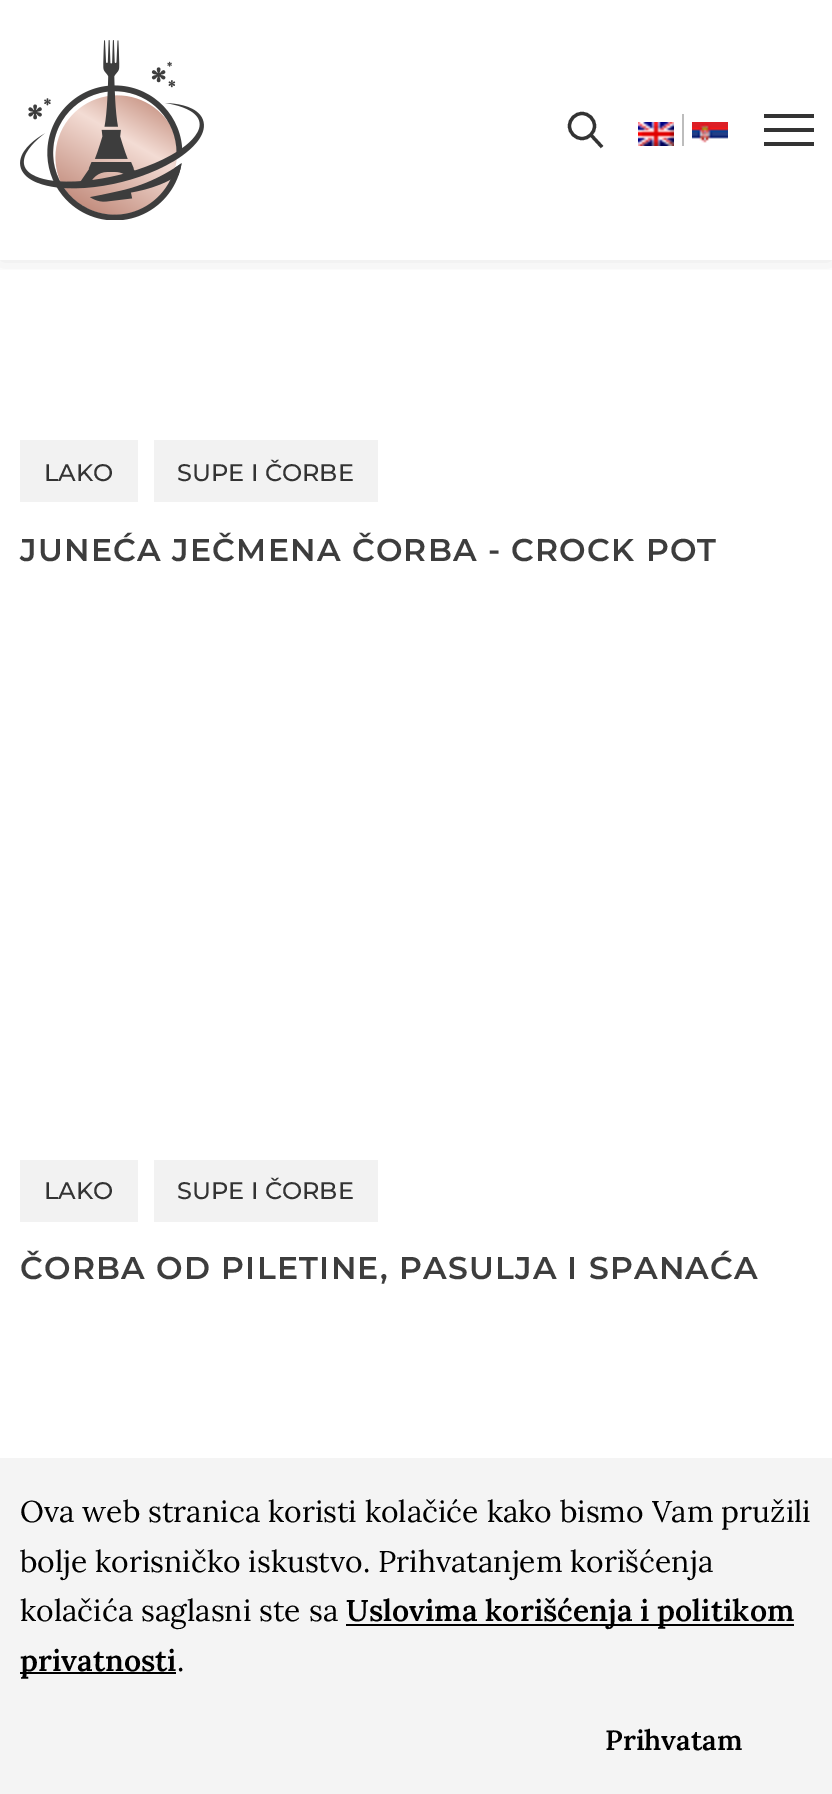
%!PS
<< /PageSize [832 1794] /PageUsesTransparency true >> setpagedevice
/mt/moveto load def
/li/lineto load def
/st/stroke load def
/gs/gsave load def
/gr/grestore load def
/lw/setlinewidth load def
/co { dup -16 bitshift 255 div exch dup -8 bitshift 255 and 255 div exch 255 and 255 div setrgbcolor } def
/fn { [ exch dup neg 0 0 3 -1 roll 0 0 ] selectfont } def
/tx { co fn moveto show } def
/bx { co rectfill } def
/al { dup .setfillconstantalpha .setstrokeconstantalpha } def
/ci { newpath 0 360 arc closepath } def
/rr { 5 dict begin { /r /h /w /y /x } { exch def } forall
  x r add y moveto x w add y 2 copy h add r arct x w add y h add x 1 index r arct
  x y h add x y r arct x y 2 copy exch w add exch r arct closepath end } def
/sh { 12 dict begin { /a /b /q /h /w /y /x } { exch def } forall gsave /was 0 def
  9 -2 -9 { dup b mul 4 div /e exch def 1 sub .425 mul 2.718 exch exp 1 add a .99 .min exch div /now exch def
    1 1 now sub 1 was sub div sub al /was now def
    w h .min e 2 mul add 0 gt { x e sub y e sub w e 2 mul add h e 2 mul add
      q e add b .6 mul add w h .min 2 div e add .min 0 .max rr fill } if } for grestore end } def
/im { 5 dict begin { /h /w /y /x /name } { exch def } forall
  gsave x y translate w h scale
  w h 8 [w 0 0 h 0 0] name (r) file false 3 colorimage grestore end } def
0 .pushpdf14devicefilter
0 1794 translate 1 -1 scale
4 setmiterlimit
0 0 832 1794 16#FFFFFF bx
gs
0 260 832 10 rectclip
16#000000 co
0 0 832 260 0 12 .1 sh
gr
(media/1.raw) 20 40 184 180 im
16#333333 co
3.2 lw
582 126 12.5 ci st
591 135 mt 602 147 li st
682 114 2 32 16#BDBDBD bx
(media/2.raw) 638 122 36 24 im
(media/3.raw) 692 122 36 21 im
764 114 50 4 16#333333 bx
764 128 50 4 16#333333 bx
764 142 50 4 16#333333 bx
20 440 118 62 16#F2F2F2 bx
154 440 224 62 16#F2F2F2 bx
20 1160 118 62 16#F2F2F2 bx
154 1160 224 62 16#F2F2F2 bx
0 1458 832 336 16#F4F4F4 bx
346 1624 448 2 16#000000 bx
20 1672 156 2 16#000000 bx
(LAKO) 44 481 /Montserrat-Medium 24 16#333333 tx
(SUPE I ČORBE) 177 481 /Montserrat-Medium 24 16#333333 tx
/Montserrat-SemiBold 31.5 fn
16#3D3D3D co
20 561 mt 1.25 0 (JUNEĆA JEČMENA ČORBA - CROCK POT) ashow
(LAKO) 44 1199 /Montserrat-Medium 24 16#333333 tx
(SUPE I ČORBE) 177 1199 /Montserrat-Medium 24 16#333333 tx
/Montserrat-SemiBold 31.5 fn
16#3D3D3D co
20 1279 mt 1.25 0 (ČORBA OD PILETINE, PASULJA I SPANAĆA) ashow
(Ova web stranica koristi kolačiće kako bismo Vam pružili) 20 1522 /Lora-Regular 30 16#000000 tx
(bolje korisničko iskustvo. Prihvatanjem korišćenja) 20 1572 /Lora-Regular 30 16#000000 tx
(kolačića saglasni ste sa) 20 1621 /Lora-Regular 30 16#000000 tx
(Uslovima korišćenja i politikom) 346 1621 /Lora-SemiBold 30 16#000000 tx
(privatnosti) 20 1671 /Lora-SemiBold 30 16#000000 tx
(.) 177 1671 /Lora-Regular 30 16#000000 tx
(Prihvatam) 605 1750 /Lora-SemiBold 28 16#000000 tx
.poppdf14devicefilter showpage
